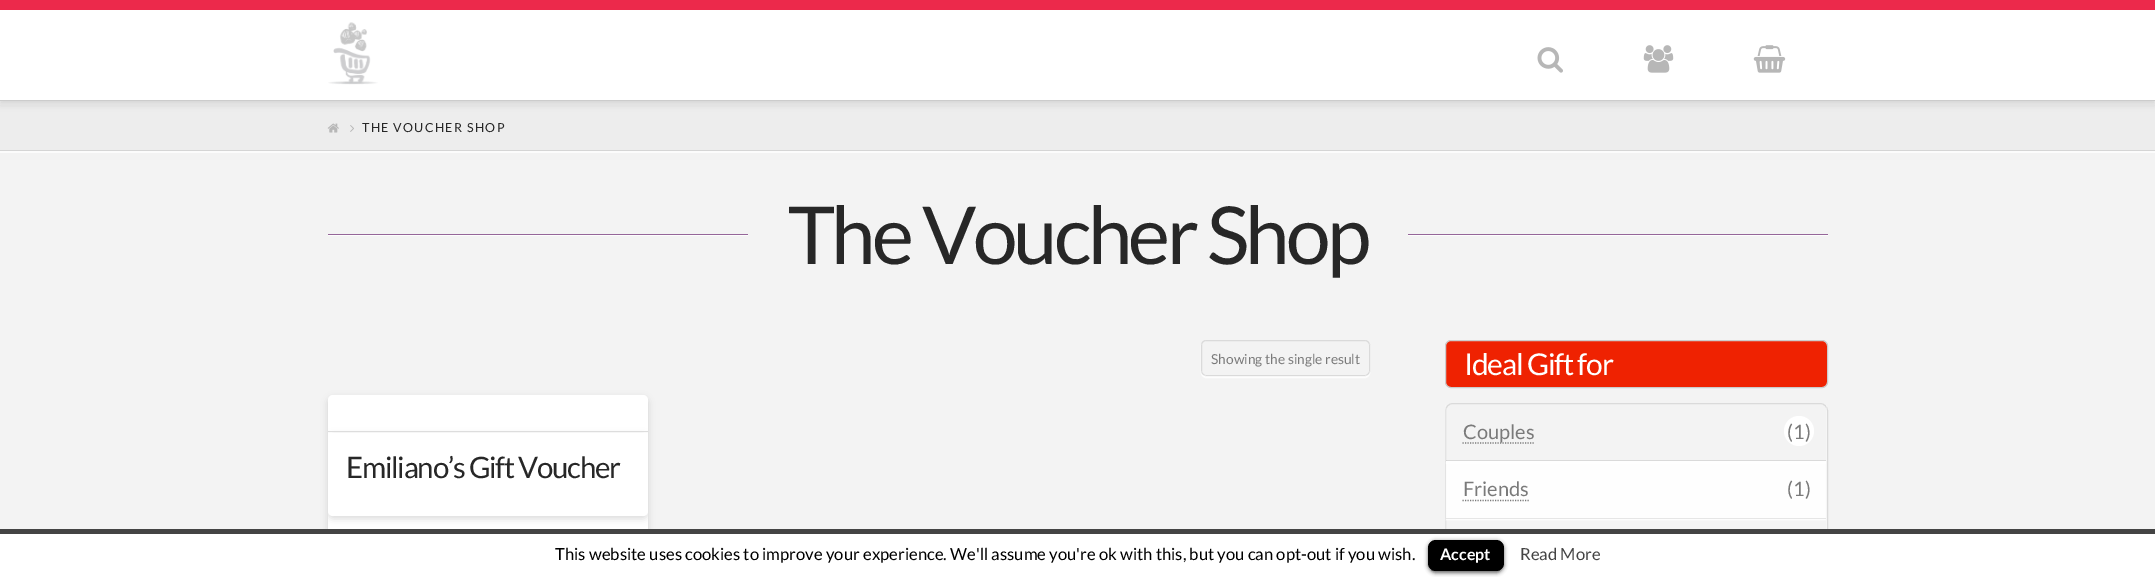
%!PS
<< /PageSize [2155 577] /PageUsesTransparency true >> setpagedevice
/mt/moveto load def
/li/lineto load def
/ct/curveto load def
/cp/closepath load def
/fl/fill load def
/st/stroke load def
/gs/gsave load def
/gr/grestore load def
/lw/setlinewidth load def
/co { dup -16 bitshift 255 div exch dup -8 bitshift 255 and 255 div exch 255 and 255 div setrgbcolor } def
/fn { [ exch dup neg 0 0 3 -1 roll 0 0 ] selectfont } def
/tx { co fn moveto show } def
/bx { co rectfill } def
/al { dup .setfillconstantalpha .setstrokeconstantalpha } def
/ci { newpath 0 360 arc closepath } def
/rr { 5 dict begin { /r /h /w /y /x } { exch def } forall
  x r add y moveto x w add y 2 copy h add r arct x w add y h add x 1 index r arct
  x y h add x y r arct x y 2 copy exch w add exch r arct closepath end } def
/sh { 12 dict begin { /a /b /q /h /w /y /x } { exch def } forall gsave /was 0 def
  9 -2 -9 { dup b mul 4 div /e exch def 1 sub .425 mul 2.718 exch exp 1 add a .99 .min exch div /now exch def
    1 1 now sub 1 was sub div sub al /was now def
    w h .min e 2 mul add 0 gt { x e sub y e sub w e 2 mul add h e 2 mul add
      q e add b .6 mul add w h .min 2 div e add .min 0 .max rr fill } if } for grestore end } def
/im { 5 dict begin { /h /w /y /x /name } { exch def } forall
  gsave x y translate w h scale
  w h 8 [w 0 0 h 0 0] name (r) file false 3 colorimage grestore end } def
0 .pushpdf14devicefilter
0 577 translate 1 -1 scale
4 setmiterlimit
0 0 2155 577 16#F3F3F3 bx
0 105 2155 45 16#EDEDED bx
16#000000 co
0 3 2155 101 0 3.5 .13 sh
0 10 2155 90 16#FFFFFF bx
0 100 2155 1 16#CCCCCC bx
0 0 2155 10 16#EC294B bx
(media/1.raw) 328 22 50 63 im
(media/2.raw) 1537 47 26 26 im
(media/3.raw) 1643 45 31 28 im
(media/4.raw) 1753 45 33 28 im
0 151 2155 2 16#FCFCFC bx
0 150 2155 1 16#D5D5D5 bx
(media/5.raw) 327 123 12 10 im
(media/6.raw) 350 125 4 7 im
328 235 420 1 16#FDFDFD bx
328 234 420 1 16#956699 bx
1408 235 420 1 16#FDFDFD bx
1408 234 420 1 16#956699 bx
gs
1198 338 mt 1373 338 li 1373 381 li 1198 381 li cp 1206 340 mt 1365 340 li 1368 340 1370 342 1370 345 ct 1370 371 li 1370 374 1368 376 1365 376 ct 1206 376 li 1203 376 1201 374 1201 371 ct 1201 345 li 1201 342 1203 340 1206 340 ct cp eoclip newpath
16#FFFFFF co
1201 341 169 37 5 .5 .95 sh
gr
0.1 al
16#000000 co
1201.5 340.5 168 35 4.5 rr st
1 al
328 398 320 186 5 3.5 .13 sh
16#FFFFFF co
328 395 320 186 5 rr fl
gs
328 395 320 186 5 rr clip newpath
16#000000 co
328 435 320 84 5 3.5 .13 sh
gr
328 431 320 1 16#DDDDDD bx
16#FFFFFF co
328 433 mt 648 433 li 648 511 li 648 514 646 516 643 516 ct 333 516 li 330 516 328 514 328 511 ct cp fl
16#EF2201 co
1445.5 340.5 382 47 5.5 rr gs fl gr
16#CCCCCC co
st
0.1 al
16#000000 co
1445.5 403.5 382 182 7.5 rr st
gs
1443 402 mt 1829 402 li 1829 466 li 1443 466 li cp 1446 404 mt 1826 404 li 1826 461 li 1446 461 li cp eoclip newpath
1 al
16#FFFFFF co
1446 405 380 58 0 .5 .95 sh
gr
1446 460 380 1 16#000000 bx
1 al
16#7A7A7A co
1.2 lw
[1.25 1.25] 0 setdash
1462.5 443 mt 1534 443 li st
16#FFFFFF co
1799 431 15 ci fl
1446 463 380 57 0 .5 .95 sh
1446 461 380 3 16#FFFFFF bx
1446 518 380 1 16#E6E6E6 bx
16#7A7A7A co
1462.5 500.5 mt 1529 500.5 li st
gs
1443 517 mt 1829 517 li 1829 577 li 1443 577 li cp 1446 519 mt 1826 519 li 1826 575 li 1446 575 li cp eoclip newpath
16#FFFFFF co
1446 520 380 56 0 .5 .95 sh
gr
0 534 2155 43 16#FFFFFF bx
0 529 2155 5 16#444444 bx
16#000000 co
1428 541 76 32 8 2 .6 sh
1428 540 76 31 8 rr fl
0.25 al
1431 570 69 1 16#000000 bx
/Lato-Regular 12.5 fn
1 al
16#272727 co
362 132 mt 1.25 0 (THE VOUCHER SHOP) ashow
/Lato-Regular 80 fn
788 264 mt -3.75 0 (The Voucher Shop) ashow
(Showing the single result) 1211 364 /Lato-Regular 13.75 16#7A7A7A tx
/Lato-Regular 29.5 fn
16#272727 co
346 478 mt -1.25 0 (Emiliano’s Gift Voucher) ashow
/Lato-Regular 30 fn
16#FFFFFF co
1464 375 mt -1.25 0 (Ideal Gift for) ashow
(Couples) 1463 439 /Lato-Regular 20 16#7A7A7A tx
(\(1\)) 1787 439 /Lato-Regular 20 16#7A7A7A tx
(Friends) 1463 496 /Lato-Regular 20 16#7A7A7A tx
(\(1\)) 1787 496 /Lato-Regular 20 16#7A7A7A tx
(This website uses cookies to improve your experience. We'll assume you're ok with this, but you can opt-out if you wish.) 555 560 /Lato-Regular 16.67 16#000000 tx
(Accept) 1440 560 /Lato-Bold 16 16#FFFFFF tx
(Read More) 1520 560 /Lato-Regular 16.67 16#444444 tx
.poppdf14devicefilter showpage
